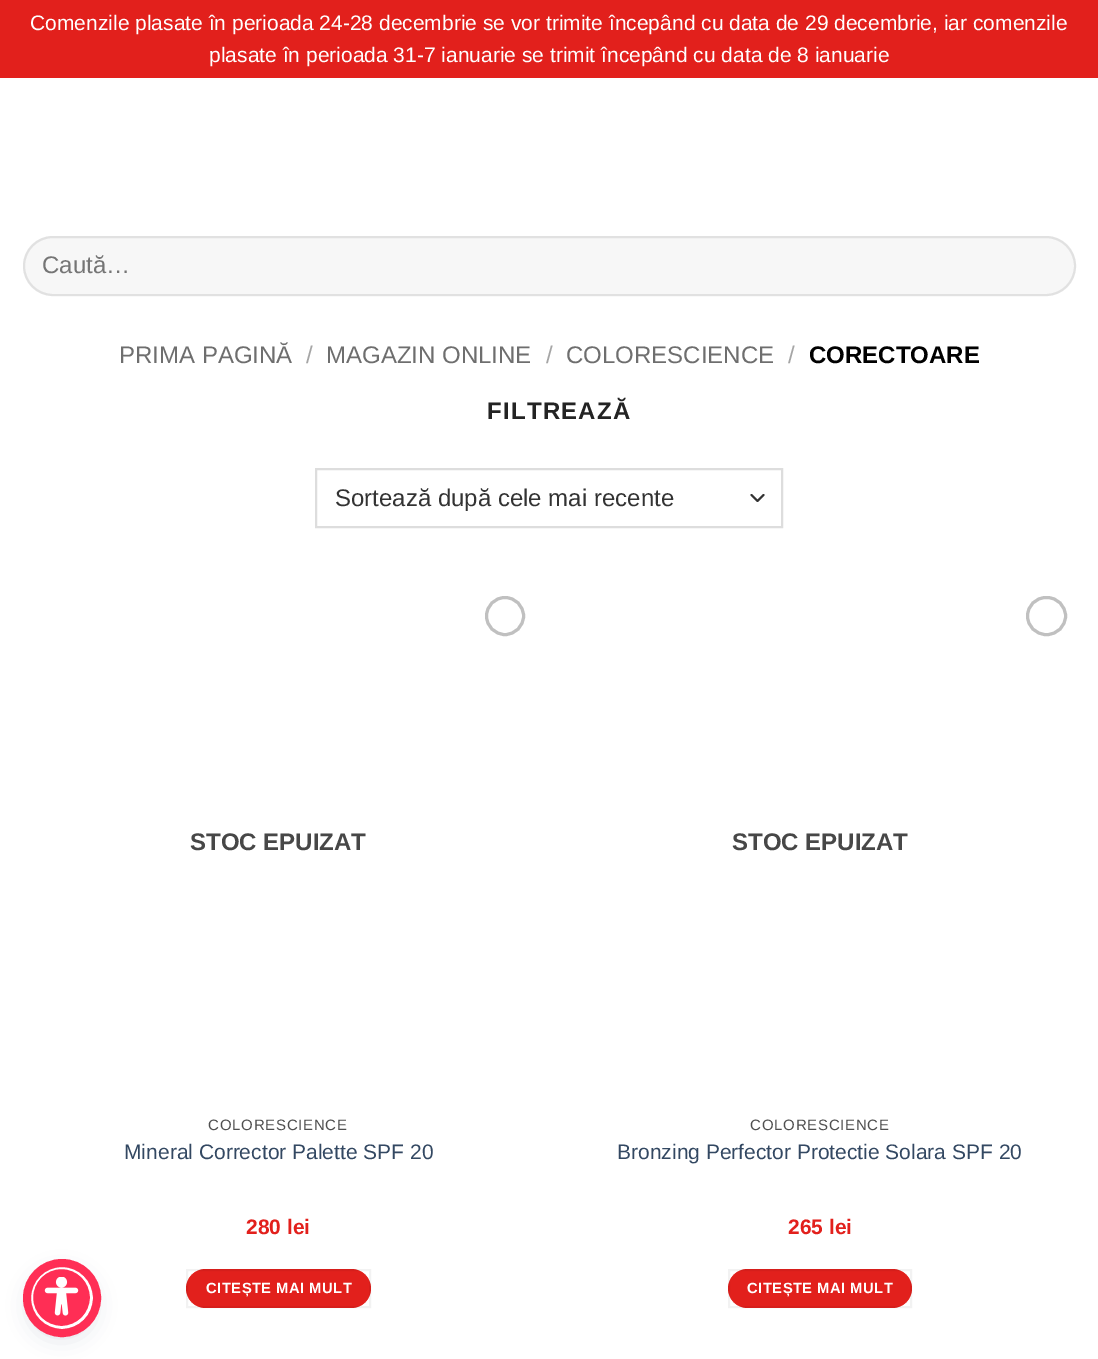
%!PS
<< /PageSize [1098 1359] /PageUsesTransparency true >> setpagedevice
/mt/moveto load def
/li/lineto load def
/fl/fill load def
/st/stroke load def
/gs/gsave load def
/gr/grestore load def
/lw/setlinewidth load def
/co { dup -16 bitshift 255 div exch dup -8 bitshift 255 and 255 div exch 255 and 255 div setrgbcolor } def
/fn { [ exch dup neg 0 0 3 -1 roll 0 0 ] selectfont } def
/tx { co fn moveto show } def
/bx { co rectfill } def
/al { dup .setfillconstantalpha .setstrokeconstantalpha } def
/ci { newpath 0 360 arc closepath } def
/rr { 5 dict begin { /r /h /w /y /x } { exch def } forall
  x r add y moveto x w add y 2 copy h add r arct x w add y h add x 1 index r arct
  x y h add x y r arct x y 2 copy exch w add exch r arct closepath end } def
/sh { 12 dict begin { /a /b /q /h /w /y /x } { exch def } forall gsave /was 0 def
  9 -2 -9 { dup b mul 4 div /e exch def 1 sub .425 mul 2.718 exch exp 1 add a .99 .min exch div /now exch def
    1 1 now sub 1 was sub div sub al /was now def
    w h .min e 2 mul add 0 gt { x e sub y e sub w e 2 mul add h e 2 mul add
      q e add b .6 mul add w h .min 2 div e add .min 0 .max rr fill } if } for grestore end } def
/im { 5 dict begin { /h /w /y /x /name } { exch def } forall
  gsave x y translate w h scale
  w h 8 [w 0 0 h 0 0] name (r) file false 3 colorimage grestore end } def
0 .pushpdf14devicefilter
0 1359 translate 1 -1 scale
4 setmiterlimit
0 0 1098 1359 16#E2201C bx
0 78 1098 1281 16#FFFFFF bx
16#F7F7F7 co
23 236 1053 60 30 rr fl
0.09 al
16#000000 co
2 lw
24 237 1051 58 29 rr st
1 al
16#333333 co
1 setlinecap
1 setlinejoin
751.5 495 mt 757.5 501 li 763.5 495 li st
16#DDDDDD co
0 setlinecap
0 setlinejoin
316 469 466 58 rectstroke
16#C0C0C0 co
3 lw
505 616 18.5 ci st
16#E2201C co
186 1269 185 39 19.5 rr fl
0.05 al
16#000000 co
2 lw
187 1270 183 37 rectstroke
1 al
16#C0C0C0 co
3 lw
1027.5 597.5 38 37 18.5 rr st
16#E2201C co
728 1269 184 39 19.5 rr fl
0.05 al
16#000000 co
2 lw
729 1270 182 37 rectstroke
1 al
16#5D6494 co
30 1269 63 63 31.5 3 .2 sh
16#252C61 co
30 1274 63 63 31.5 11 .15 sh
16#FF2E55 co
61.5 1297.5 30 ci gs fl gr
16#FFFFFF co
3 lw
st
16#FF2E55 co
8 lw
62 1298 35 ci st
(media/1.raw) 44 1277 35 39 im
(Comenzile plasate în perioada 24-28 decembrie se vor trimite începând cu data de 29 decembrie, iar comenzile) 30 30 /LiberationSans-Regular 21 16#FFFFFF tx
(plasate în perioada 31-7 ianuarie se trimit începând cu data de 8 ianuarie) 209 62 /LiberationSans-Regular 21 16#FFFFFF tx
(Caută…) 42 273 /LiberationSans-Regular 24 16#757575 tx
(PRIMA PAGINĂ) 119 363 /LiberationSans-Regular 24 16#6E6E6E tx
(/) 306 363 /LiberationSans-Regular 24 16#A6A6A6 tx
(MAGAZIN ONLINE) 326 363 /LiberationSans-Regular 24 16#6E6E6E tx
(/) 546 363 /LiberationSans-Regular 24 16#A6A6A6 tx
(COLORESCIENCE) 566 363 /LiberationSans-Regular 24 16#6E6E6E tx
(/) 788 363 /LiberationSans-Regular 24 16#A6A6A6 tx
(CORECTOARE) 809 363 /LiberationSans-Bold 24 16#000000 tx
16#232323 co
487 419 mt 1.25 0 (FILTREAZĂ) ashow
(Sortează după cele mai recente) 335 506 /LiberationSans-Regular 24 16#333333 tx
(STOC EPUIZAT) 190 850 /LiberationSans-Bold 24 16#474747 tx
/LiberationSans-Regular 15 fn
16#4F4F4F co
208 1130 mt .75 0 (COLORESCIENCE) ashow
(Mineral Corrector Palette SPF 20) 124 1159 /LiberationSans-Regular 21 16#334862 tx
(280 lei) 246 1234 /LiberationSans-Bold 21 16#E2201C tx
/LiberationSans-Bold 14.75 fn
16#FFFFFF co
206 1293 mt .5 0 (CITEȘTE MAI MULT) ashow
(STOC EPUIZAT) 732 850 /LiberationSans-Bold 24 16#474747 tx
/LiberationSans-Regular 15 fn
16#4F4F4F co
750 1130 mt .75 0 (COLORESCIENCE) ashow
(Bronzing Perfector Protectie Solara SPF 20) 617 1159 /LiberationSans-Regular 21 16#334862 tx
(265 lei) 788 1234 /LiberationSans-Bold 21 16#E2201C tx
/LiberationSans-Bold 14.75 fn
16#FFFFFF co
747 1293 mt .5 0 (CITEȘTE MAI MULT) ashow
.poppdf14devicefilter showpage
